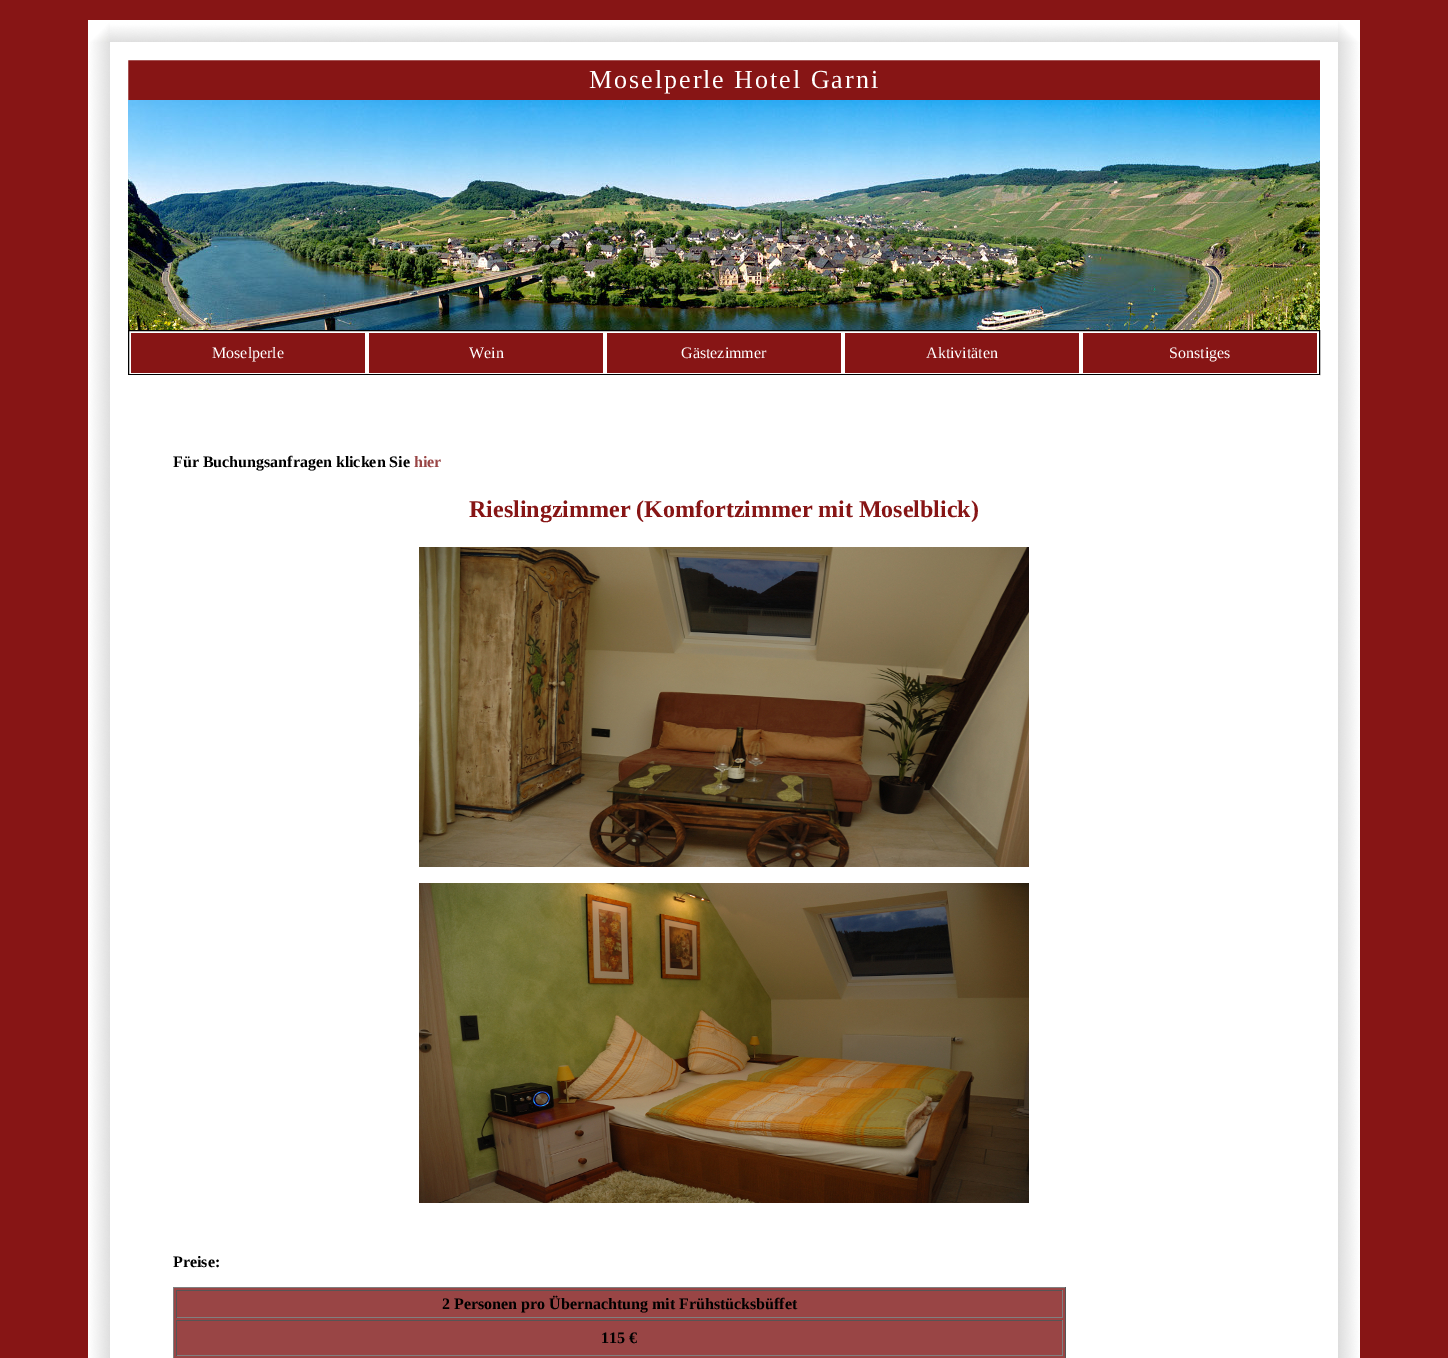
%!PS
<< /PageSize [1448 1358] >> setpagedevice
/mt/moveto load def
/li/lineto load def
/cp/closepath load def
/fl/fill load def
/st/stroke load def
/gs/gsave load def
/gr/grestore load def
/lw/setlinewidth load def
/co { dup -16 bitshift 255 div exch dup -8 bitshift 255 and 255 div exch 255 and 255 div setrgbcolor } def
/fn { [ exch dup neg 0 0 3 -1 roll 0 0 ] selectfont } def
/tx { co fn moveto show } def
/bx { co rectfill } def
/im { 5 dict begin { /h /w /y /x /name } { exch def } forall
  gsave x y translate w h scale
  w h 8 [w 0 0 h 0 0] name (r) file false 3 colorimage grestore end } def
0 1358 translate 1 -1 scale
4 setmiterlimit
0 0 1448 1358 16#871515 bx
(media/1.raw) 88 20 22 22 im
(media/2.raw) 110 20 1228 22 im
(media/3.raw) 1338 20 22 22 im
(media/4.raw) 88 42 22 1316 im
16#FFFFFF co
18 lw
119 51 1210 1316 rectstroke
(media/5.raw) 128 100 1192 230 im
128.5 330.5 mt 1319.5 330.5 li 1319.5 374.5 li 128.5 374.5 li cp gs fl gr
16#000000 co
1 lw
st
131 333 234 40 16#871515 bx
369 333 234 40 16#871515 bx
607 333 234 40 16#871515 bx
845 333 234 40 16#871515 bx
1083 333 234 40 16#871515 bx
128 375 1192 983 16#FFFFFF bx
(media/6.raw) 419 547 610 320 im
(media/7.raw) 419 883 610 320 im
174 1288 891 70 16#994545 bx
173 1287 893 1 16#808080 bx
1065 1287 1 71 16#555555 bx
173 1287 1 71 16#808080 bx
176 1290 887 1 16#555555 bx
1062 1290 1 28 16#808080 bx
176 1317 887 1 16#808080 bx
176 1290 1 28 16#555555 bx
176 1320 887 1 16#555555 bx
1062 1320 1 36 16#808080 bx
176 1355 887 1 16#808080 bx
176 1320 1 36 16#555555 bx
(media/8.raw) 1338 42 22 1316 im
/LiberationSerif-Regular 26 fn
16#FFFFFF co
589 88 mt 2 0 (Moselperle Hotel Garni) ashow
(Moselperle) 212 358 /LiberationSerif-Regular 16 16#FFFFFF tx
(Wein) 469 358 /LiberationSerif-Regular 16 16#FFFFFF tx
(Gästezimmer) 681 358 /LiberationSerif-Regular 16 16#FFFFFF tx
(Aktivitäten) 926 358 /LiberationSerif-Regular 16 16#FFFFFF tx
(Sonstiges) 1169 358 /LiberationSerif-Regular 16 16#FFFFFF tx
(Für Buchungsanfragen klicken Sie) 173 467 /LiberationSerif-Bold 16 16#000000 tx
(hier) 414 467 /LiberationSerif-Bold 16 16#994545 tx
(Rieslingzimmer \(Komfortzimmer mit Moselblick\)) 469 517 /LiberationSerif-Bold 24 16#871515 tx
(Preise:) 173 1267 /LiberationSerif-Bold 16 16#000000 tx
(2 Personen pro Übernachtung mit Frühstücksbüffet) 442 1309 /LiberationSerif-Bold 16 16#000000 tx
(115 €) 601 1343 /LiberationSerif-Bold 16 16#000000 tx
showpage
